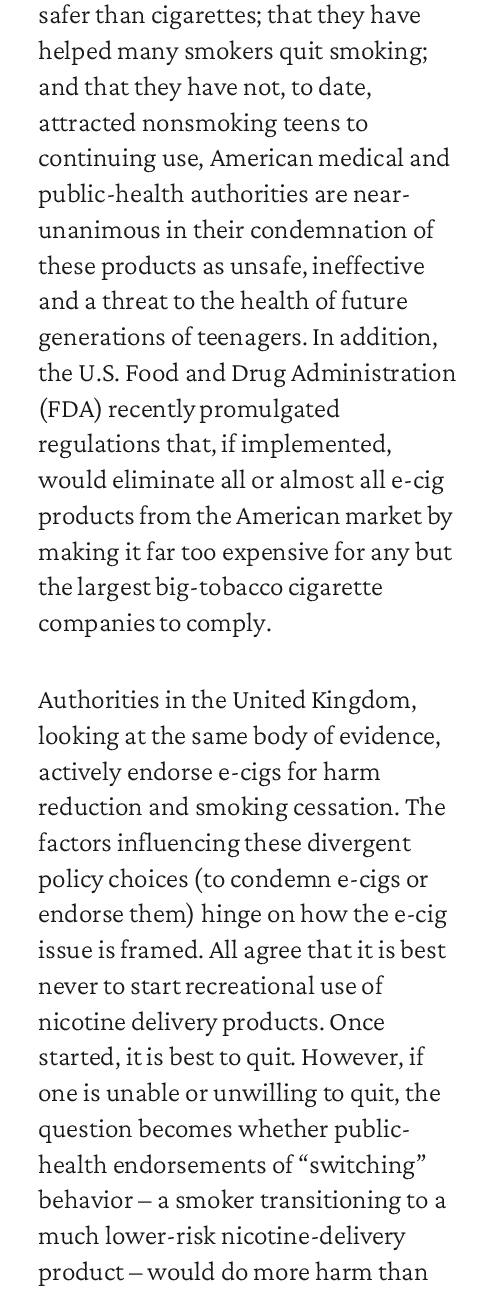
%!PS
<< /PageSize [500 1306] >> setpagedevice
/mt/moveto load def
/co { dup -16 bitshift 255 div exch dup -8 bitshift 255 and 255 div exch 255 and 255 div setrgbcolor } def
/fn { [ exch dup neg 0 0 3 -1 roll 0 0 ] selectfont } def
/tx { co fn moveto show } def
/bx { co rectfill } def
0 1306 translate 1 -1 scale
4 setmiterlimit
0 0 500 1306 16#FFFFFF bx
/CrimsonPro-Light 27.5 fn
16#191919 co
38 23 mt -.25 0 32 (safer than cigarettes; that they have) widthshow
(helped many smokers quit smoking;) 38 59 /CrimsonPro-Light 27.5 16#191919 tx
38 95 mt -.25 0 32 (and that they have not, to date,) widthshow
(attracted nonsmoking teens to) 38 131 /CrimsonPro-Light 27.5 16#191919 tx
(continuing use, American medical and) 38 166 /CrimsonPro-Light 27.5 16#191919 tx
(public-health authorities are near-) 38 202 /CrimsonPro-Light 27.5 16#191919 tx
(unanimous in their condemnation of) 38 238 /CrimsonPro-Light 27.5 16#191919 tx
38 274 mt -.5 0 32 (these products as unsafe, ineffective) widthshow
38 309 mt -.25 0 32 (and a threat to the health of future) widthshow
38 345 mt -.5 0 32 (generations of teenagers. In addition,) widthshow
38 381 mt -.25 0 32 (the U.S. Food and Drug Administration) widthshow
38 417 mt -1 0 32 (\(FDA\) recently promulgated) widthshow
38 452 mt -.25 0 32 (regulations that, if implemented,) widthshow
(would eliminate all or almost all e-cig) 38 488 /CrimsonPro-Light 27.5 16#191919 tx
38 524 mt -.5 0 32 (products from the American market by) widthshow
(making it far too expensive for any but) 38 560 /CrimsonPro-Light 27.5 16#191919 tx
38 595 mt -1 0 32 (the largest big-tobacco cigarette) widthshow
38 631 mt -1 0 32 (companies to comply.) widthshow
(Authorities in the United Kingdom,) 38 708 /CrimsonPro-Light 27.5 16#191919 tx
(looking at the same body of evidence,) 38 744 /CrimsonPro-Light 27.5 16#191919 tx
(actively endorse e-cigs for harm) 38 780 /CrimsonPro-Light 27.5 16#191919 tx
(reduction and smoking cessation. The) 38 815 /CrimsonPro-Light 27.5 16#191919 tx
38 851 mt -.5 0 32 (factors influencing these divergent) widthshow
(policy choices \(to condemn e-cigs or) 38 887 /CrimsonPro-Light 27.5 16#191919 tx
(endorse them\) hinge on how the e-cig) 38 922 /CrimsonPro-Light 27.5 16#191919 tx
38 958 mt -.25 0 32 (issue is framed. All agree that it is best) widthshow
38 994 mt -.5 0 32 (never to start recreational use of) widthshow
38 1030 mt -.5 0 32 (nicotine delivery products. Once) widthshow
38 1065 mt -.25 0 32 (started, it is best to quit. However, if) widthshow
(one is unable or unwilling to quit, the) 38 1101 /CrimsonPro-Light 27.5 16#191919 tx
(question becomes whether public-) 38 1137 /CrimsonPro-Light 27.5 16#191919 tx
(health endorsements of “switching”) 38 1173 /CrimsonPro-Light 27.5 16#191919 tx
(behavior – a smoker transitioning to a) 38 1208 /CrimsonPro-Light 27.5 16#191919 tx
(much lower-risk nicotine-delivery) 38 1244 /CrimsonPro-Light 27.5 16#191919 tx
38 1280 mt -.25 0 32 (product – would do more harm than) widthshow
showpage
